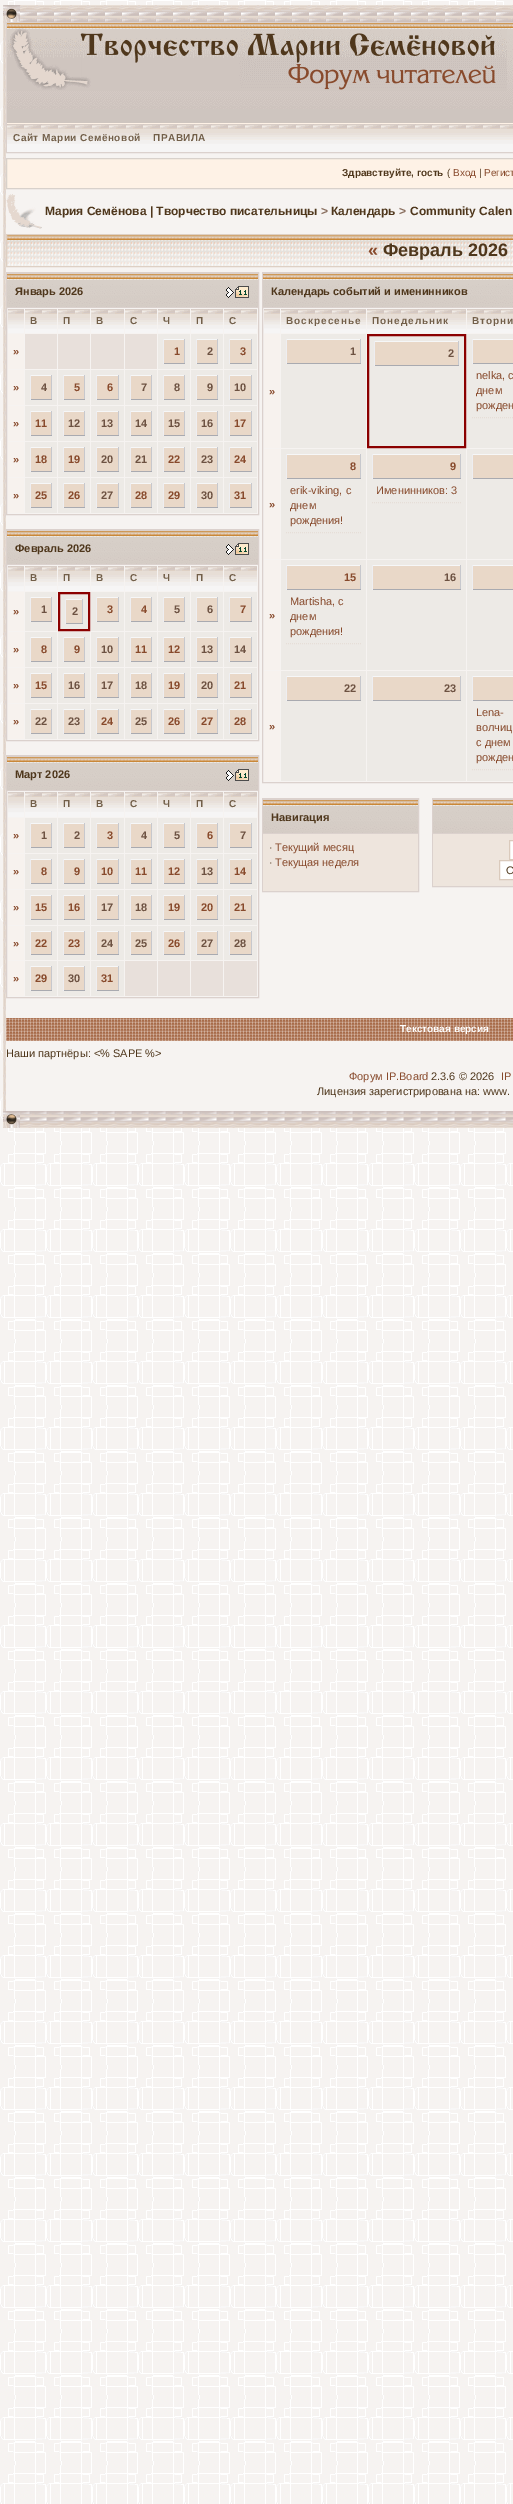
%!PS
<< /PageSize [513 2504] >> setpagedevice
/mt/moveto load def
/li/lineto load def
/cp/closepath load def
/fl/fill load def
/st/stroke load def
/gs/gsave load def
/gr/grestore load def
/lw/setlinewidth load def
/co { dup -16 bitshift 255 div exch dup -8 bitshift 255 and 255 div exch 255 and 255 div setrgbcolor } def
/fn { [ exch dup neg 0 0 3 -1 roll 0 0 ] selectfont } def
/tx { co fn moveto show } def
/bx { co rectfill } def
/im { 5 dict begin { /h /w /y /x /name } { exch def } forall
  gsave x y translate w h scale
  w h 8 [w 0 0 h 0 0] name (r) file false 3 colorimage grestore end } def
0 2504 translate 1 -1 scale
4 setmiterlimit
0 0 513 2504 16#F6F3F1 bx
(media/1.raw) 0 0 513 2504 im
(media/2.raw) 3 5 17 17 im
(media/3.raw) 20 5 493 17 im
(media/4.raw) 3 22 3 1089 im
6 153 507 958 16#F6F3F1 bx
16#DBD1CD co
6.5 22.5 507 130 rectstroke
7 109 506 14 16#CEC5BF bx
(media/5.raw) 7 23 506 86 im
(media/6.raw) 7 25 500 66 im
(media/7.raw) 7 124 506 28 im
7 123 506 1 16#FEF2E6 bx
6.5 158.5 mt 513.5 158.5 li 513.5 188.5 li 6.5 188.5 li cp gs fl gr
16#D8D1CB co
st
(media/8.raw) 6 194 36 35 im
(media/9.raw) 7 235 506 31 im
16#DED0C4 co
6.5 234.5 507 32 rectstroke
16#DBD1CD co
6.5 272.5 252 242 rectstroke
(media/10.raw) 7 274 251 33 im
7 273 251 1 16#DBD1CD bx
7 307 251 1 16#DBD1CD bx
(media/11.raw) 226 286 23 12 im
(media/12.raw) 8 309 16 24 im
(media/13.raw) 25 309 32 24 im
(media/13.raw) 58 309 32 24 im
(media/14.raw) 91 309 33 24 im
(media/13.raw) 125 309 32 24 im
(media/13.raw) 158 309 32 24 im
(media/13.raw) 191 309 32 24 im
(media/14.raw) 224 309 33 24 im
8 334 16 35 16#F7F2EE bx
25 334 32 35 16#E8E0DB bx
58 334 32 35 16#E8E0DB bx
91 334 33 35 16#E8E0DB bx
125 334 32 35 16#E8E0DB bx
158 334 32 35 16#EDEAE6 bx
164 340 20 23 16#E9D8C8 bx
163 339 22 1 16#F6F7F8 bx
184 339 1 25 16#C7C8CD bx
163 363 22 1 16#A9AAB0 bx
163 339 1 25 16#EEEEF1 bx
191 334 32 35 16#EDEAE6 bx
197 340 20 23 16#E9D8C8 bx
196 339 22 1 16#F6F7F8 bx
217 339 1 25 16#C7C8CD bx
196 363 22 1 16#A9AAB0 bx
196 339 1 25 16#EEEEF1 bx
224 334 33 35 16#EDEAE6 bx
230 340 21 23 16#E9D8C8 bx
229 339 23 1 16#F6F7F8 bx
251 339 1 25 16#C7C8CD bx
229 363 23 1 16#A9AAB0 bx
229 339 1 25 16#EEEEF1 bx
8 370 16 35 16#F7F2EE bx
25 370 32 35 16#EDEAE6 bx
31 376 20 23 16#E9D8C8 bx
30 375 22 1 16#F6F7F8 bx
51 375 1 25 16#C7C8CD bx
30 399 22 1 16#A9AAB0 bx
30 375 1 25 16#EEEEF1 bx
58 370 32 35 16#EDEAE6 bx
64 376 20 23 16#E9D8C8 bx
63 375 22 1 16#F6F7F8 bx
84 375 1 25 16#C7C8CD bx
63 399 22 1 16#A9AAB0 bx
63 375 1 25 16#EEEEF1 bx
91 370 33 35 16#EDEAE6 bx
97 376 21 23 16#E9D8C8 bx
96 375 23 1 16#F6F7F8 bx
118 375 1 25 16#C7C8CD bx
96 399 23 1 16#A9AAB0 bx
96 375 1 25 16#EEEEF1 bx
125 370 32 35 16#EDEAE6 bx
131 376 20 23 16#E9D8C8 bx
130 375 22 1 16#F6F7F8 bx
151 375 1 25 16#C7C8CD bx
130 399 22 1 16#A9AAB0 bx
130 375 1 25 16#EEEEF1 bx
158 370 32 35 16#EDEAE6 bx
164 376 20 23 16#E9D8C8 bx
163 375 22 1 16#F6F7F8 bx
184 375 1 25 16#C7C8CD bx
163 399 22 1 16#A9AAB0 bx
163 375 1 25 16#EEEEF1 bx
191 370 32 35 16#EDEAE6 bx
197 376 20 23 16#E9D8C8 bx
196 375 22 1 16#F6F7F8 bx
217 375 1 25 16#C7C8CD bx
196 399 22 1 16#A9AAB0 bx
196 375 1 25 16#EEEEF1 bx
224 370 33 35 16#EDEAE6 bx
230 376 21 23 16#E9D8C8 bx
229 375 23 1 16#F6F7F8 bx
251 375 1 25 16#C7C8CD bx
229 399 23 1 16#A9AAB0 bx
229 375 1 25 16#EEEEF1 bx
8 406 16 35 16#F7F2EE bx
25 406 32 35 16#EDEAE6 bx
31 412 20 23 16#E9D8C8 bx
30 411 22 1 16#F6F7F8 bx
51 411 1 25 16#C7C8CD bx
30 435 22 1 16#A9AAB0 bx
30 411 1 25 16#EEEEF1 bx
58 406 32 35 16#EDEAE6 bx
64 412 20 23 16#E9D8C8 bx
63 411 22 1 16#F6F7F8 bx
84 411 1 25 16#C7C8CD bx
63 435 22 1 16#A9AAB0 bx
63 411 1 25 16#EEEEF1 bx
91 406 33 35 16#EDEAE6 bx
97 412 21 23 16#E9D8C8 bx
96 411 23 1 16#F6F7F8 bx
118 411 1 25 16#C7C8CD bx
96 435 23 1 16#A9AAB0 bx
96 411 1 25 16#EEEEF1 bx
125 406 32 35 16#EDEAE6 bx
131 412 20 23 16#E9D8C8 bx
130 411 22 1 16#F6F7F8 bx
151 411 1 25 16#C7C8CD bx
130 435 22 1 16#A9AAB0 bx
130 411 1 25 16#EEEEF1 bx
158 406 32 35 16#EDEAE6 bx
164 412 20 23 16#E9D8C8 bx
163 411 22 1 16#F6F7F8 bx
184 411 1 25 16#C7C8CD bx
163 435 22 1 16#A9AAB0 bx
163 411 1 25 16#EEEEF1 bx
191 406 32 35 16#EDEAE6 bx
197 412 20 23 16#E9D8C8 bx
196 411 22 1 16#F6F7F8 bx
217 411 1 25 16#C7C8CD bx
196 435 22 1 16#A9AAB0 bx
196 411 1 25 16#EEEEF1 bx
224 406 33 35 16#EDEAE6 bx
230 412 21 23 16#E9D8C8 bx
229 411 23 1 16#F6F7F8 bx
251 411 1 25 16#C7C8CD bx
229 435 23 1 16#A9AAB0 bx
229 411 1 25 16#EEEEF1 bx
8 442 16 35 16#F7F2EE bx
25 442 32 35 16#EDEAE6 bx
31 448 20 23 16#E9D8C8 bx
30 447 22 1 16#F6F7F8 bx
51 447 1 25 16#C7C8CD bx
30 471 22 1 16#A9AAB0 bx
30 447 1 25 16#EEEEF1 bx
58 442 32 35 16#EDEAE6 bx
64 448 20 23 16#E9D8C8 bx
63 447 22 1 16#F6F7F8 bx
84 447 1 25 16#C7C8CD bx
63 471 22 1 16#A9AAB0 bx
63 447 1 25 16#EEEEF1 bx
91 442 33 35 16#EDEAE6 bx
97 448 21 23 16#E9D8C8 bx
96 447 23 1 16#F6F7F8 bx
118 447 1 25 16#C7C8CD bx
96 471 23 1 16#A9AAB0 bx
96 447 1 25 16#EEEEF1 bx
125 442 32 35 16#EDEAE6 bx
131 448 20 23 16#E9D8C8 bx
130 447 22 1 16#F6F7F8 bx
151 447 1 25 16#C7C8CD bx
130 471 22 1 16#A9AAB0 bx
130 447 1 25 16#EEEEF1 bx
158 442 32 35 16#EDEAE6 bx
164 448 20 23 16#E9D8C8 bx
163 447 22 1 16#F6F7F8 bx
184 447 1 25 16#C7C8CD bx
163 471 22 1 16#A9AAB0 bx
163 447 1 25 16#EEEEF1 bx
191 442 32 35 16#EDEAE6 bx
197 448 20 23 16#E9D8C8 bx
196 447 22 1 16#F6F7F8 bx
217 447 1 25 16#C7C8CD bx
196 471 22 1 16#A9AAB0 bx
196 447 1 25 16#EEEEF1 bx
224 442 33 35 16#EDEAE6 bx
230 448 21 23 16#E9D8C8 bx
229 447 23 1 16#F6F7F8 bx
251 447 1 25 16#C7C8CD bx
229 471 23 1 16#A9AAB0 bx
229 447 1 25 16#EEEEF1 bx
8 478 16 35 16#F7F2EE bx
25 478 32 35 16#EDEAE6 bx
31 484 20 23 16#E9D8C8 bx
30 483 22 1 16#F6F7F8 bx
51 483 1 25 16#C7C8CD bx
30 507 22 1 16#A9AAB0 bx
30 483 1 25 16#EEEEF1 bx
58 478 32 35 16#EDEAE6 bx
64 484 20 23 16#E9D8C8 bx
63 483 22 1 16#F6F7F8 bx
84 483 1 25 16#C7C8CD bx
63 507 22 1 16#A9AAB0 bx
63 483 1 25 16#EEEEF1 bx
91 478 33 35 16#EDEAE6 bx
97 484 21 23 16#E9D8C8 bx
96 483 23 1 16#F6F7F8 bx
118 483 1 25 16#C7C8CD bx
96 507 23 1 16#A9AAB0 bx
96 483 1 25 16#EEEEF1 bx
125 478 32 35 16#EDEAE6 bx
131 484 20 23 16#E9D8C8 bx
130 483 22 1 16#F6F7F8 bx
151 483 1 25 16#C7C8CD bx
130 507 22 1 16#A9AAB0 bx
130 483 1 25 16#EEEEF1 bx
158 478 32 35 16#EDEAE6 bx
164 484 20 23 16#E9D8C8 bx
163 483 22 1 16#F6F7F8 bx
184 483 1 25 16#C7C8CD bx
163 507 22 1 16#A9AAB0 bx
163 483 1 25 16#EEEEF1 bx
191 478 32 35 16#EDEAE6 bx
197 484 20 23 16#E9D8C8 bx
196 483 22 1 16#F6F7F8 bx
217 483 1 25 16#C7C8CD bx
196 507 22 1 16#A9AAB0 bx
196 483 1 25 16#EEEEF1 bx
224 478 33 35 16#EDEAE6 bx
230 484 21 23 16#E9D8C8 bx
229 483 23 1 16#F6F7F8 bx
251 483 1 25 16#C7C8CD bx
229 507 23 1 16#A9AAB0 bx
229 483 1 25 16#EEEEF1 bx
16#DBD1CD co
6.5 529.5 252 211 rectstroke
(media/10.raw) 7 531 251 33 im
7 530 251 1 16#DBD1CD bx
7 564 251 1 16#DBD1CD bx
(media/11.raw) 226 543 23 12 im
(media/15.raw) 8 566 16 25 im
(media/16.raw) 25 566 32 25 im
(media/16.raw) 58 566 32 25 im
(media/17.raw) 91 566 33 25 im
(media/16.raw) 125 566 32 25 im
(media/16.raw) 158 566 32 25 im
(media/16.raw) 191 566 32 25 im
(media/17.raw) 224 566 33 25 im
8 592 16 39 16#F7F2EE bx
25 592 32 39 16#EDEAE6 bx
31 598 20 23 16#E9D8C8 bx
30 597 22 1 16#F6F7F8 bx
51 597 1 25 16#C7C8CD bx
30 621 22 1 16#A9AAB0 bx
30 597 1 25 16#EEEEF1 bx
16#EDEAE6 co
59 593 mt 89 593 li 89 630 li 59 630 li cp gs fl gr
16#8B0000 co
2 lw
st
66 600 16 23 16#E9D8C8 bx
65 599 18 1 16#F6F7F8 bx
82 599 1 25 16#C7C8CD bx
65 623 18 1 16#A9AAB0 bx
65 599 1 25 16#EEEEF1 bx
91 592 33 39 16#EDEAE6 bx
97 598 21 23 16#E9D8C8 bx
96 597 23 1 16#F6F7F8 bx
118 597 1 25 16#C7C8CD bx
96 621 23 1 16#A9AAB0 bx
96 597 1 25 16#EEEEF1 bx
125 592 32 39 16#EDEAE6 bx
131 598 20 23 16#E9D8C8 bx
130 597 22 1 16#F6F7F8 bx
151 597 1 25 16#C7C8CD bx
130 621 22 1 16#A9AAB0 bx
130 597 1 25 16#EEEEF1 bx
158 592 32 39 16#EDEAE6 bx
164 598 20 23 16#E9D8C8 bx
163 597 22 1 16#F6F7F8 bx
184 597 1 25 16#C7C8CD bx
163 621 22 1 16#A9AAB0 bx
163 597 1 25 16#EEEEF1 bx
191 592 32 39 16#EDEAE6 bx
197 598 20 23 16#E9D8C8 bx
196 597 22 1 16#F6F7F8 bx
217 597 1 25 16#C7C8CD bx
196 621 22 1 16#A9AAB0 bx
196 597 1 25 16#EEEEF1 bx
224 592 33 39 16#EDEAE6 bx
230 598 21 23 16#E9D8C8 bx
229 597 23 1 16#F6F7F8 bx
251 597 1 25 16#C7C8CD bx
229 621 23 1 16#A9AAB0 bx
229 597 1 25 16#EEEEF1 bx
8 632 16 35 16#F7F2EE bx
25 632 32 35 16#EDEAE6 bx
31 638 20 23 16#E9D8C8 bx
30 637 22 1 16#F6F7F8 bx
51 637 1 25 16#C7C8CD bx
30 661 22 1 16#A9AAB0 bx
30 637 1 25 16#EEEEF1 bx
58 632 32 35 16#EDEAE6 bx
64 638 20 23 16#E9D8C8 bx
63 637 22 1 16#F6F7F8 bx
84 637 1 25 16#C7C8CD bx
63 661 22 1 16#A9AAB0 bx
63 637 1 25 16#EEEEF1 bx
91 632 33 35 16#EDEAE6 bx
97 638 21 23 16#E9D8C8 bx
96 637 23 1 16#F6F7F8 bx
118 637 1 25 16#C7C8CD bx
96 661 23 1 16#A9AAB0 bx
96 637 1 25 16#EEEEF1 bx
125 632 32 35 16#EDEAE6 bx
131 638 20 23 16#E9D8C8 bx
130 637 22 1 16#F6F7F8 bx
151 637 1 25 16#C7C8CD bx
130 661 22 1 16#A9AAB0 bx
130 637 1 25 16#EEEEF1 bx
158 632 32 35 16#EDEAE6 bx
164 638 20 23 16#E9D8C8 bx
163 637 22 1 16#F6F7F8 bx
184 637 1 25 16#C7C8CD bx
163 661 22 1 16#A9AAB0 bx
163 637 1 25 16#EEEEF1 bx
191 632 32 35 16#EDEAE6 bx
197 638 20 23 16#E9D8C8 bx
196 637 22 1 16#F6F7F8 bx
217 637 1 25 16#C7C8CD bx
196 661 22 1 16#A9AAB0 bx
196 637 1 25 16#EEEEF1 bx
224 632 33 35 16#EDEAE6 bx
230 638 21 23 16#E9D8C8 bx
229 637 23 1 16#F6F7F8 bx
251 637 1 25 16#C7C8CD bx
229 661 23 1 16#A9AAB0 bx
229 637 1 25 16#EEEEF1 bx
8 668 16 35 16#F7F2EE bx
25 668 32 35 16#EDEAE6 bx
31 674 20 23 16#E9D8C8 bx
30 673 22 1 16#F6F7F8 bx
51 673 1 25 16#C7C8CD bx
30 697 22 1 16#A9AAB0 bx
30 673 1 25 16#EEEEF1 bx
58 668 32 35 16#EDEAE6 bx
64 674 20 23 16#E9D8C8 bx
63 673 22 1 16#F6F7F8 bx
84 673 1 25 16#C7C8CD bx
63 697 22 1 16#A9AAB0 bx
63 673 1 25 16#EEEEF1 bx
91 668 33 35 16#EDEAE6 bx
97 674 21 23 16#E9D8C8 bx
96 673 23 1 16#F6F7F8 bx
118 673 1 25 16#C7C8CD bx
96 697 23 1 16#A9AAB0 bx
96 673 1 25 16#EEEEF1 bx
125 668 32 35 16#EDEAE6 bx
131 674 20 23 16#E9D8C8 bx
130 673 22 1 16#F6F7F8 bx
151 673 1 25 16#C7C8CD bx
130 697 22 1 16#A9AAB0 bx
130 673 1 25 16#EEEEF1 bx
158 668 32 35 16#EDEAE6 bx
164 674 20 23 16#E9D8C8 bx
163 673 22 1 16#F6F7F8 bx
184 673 1 25 16#C7C8CD bx
163 697 22 1 16#A9AAB0 bx
163 673 1 25 16#EEEEF1 bx
191 668 32 35 16#EDEAE6 bx
197 674 20 23 16#E9D8C8 bx
196 673 22 1 16#F6F7F8 bx
217 673 1 25 16#C7C8CD bx
196 697 22 1 16#A9AAB0 bx
196 673 1 25 16#EEEEF1 bx
224 668 33 35 16#EDEAE6 bx
230 674 21 23 16#E9D8C8 bx
229 673 23 1 16#F6F7F8 bx
251 673 1 25 16#C7C8CD bx
229 697 23 1 16#A9AAB0 bx
229 673 1 25 16#EEEEF1 bx
8 704 16 35 16#F7F2EE bx
25 704 32 35 16#EDEAE6 bx
31 710 20 23 16#E9D8C8 bx
30 709 22 1 16#F6F7F8 bx
51 709 1 25 16#C7C8CD bx
30 733 22 1 16#A9AAB0 bx
30 709 1 25 16#EEEEF1 bx
58 704 32 35 16#EDEAE6 bx
64 710 20 23 16#E9D8C8 bx
63 709 22 1 16#F6F7F8 bx
84 709 1 25 16#C7C8CD bx
63 733 22 1 16#A9AAB0 bx
63 709 1 25 16#EEEEF1 bx
91 704 33 35 16#EDEAE6 bx
97 710 21 23 16#E9D8C8 bx
96 709 23 1 16#F6F7F8 bx
118 709 1 25 16#C7C8CD bx
96 733 23 1 16#A9AAB0 bx
96 709 1 25 16#EEEEF1 bx
125 704 32 35 16#EDEAE6 bx
131 710 20 23 16#E9D8C8 bx
130 709 22 1 16#F6F7F8 bx
151 709 1 25 16#C7C8CD bx
130 733 22 1 16#A9AAB0 bx
130 709 1 25 16#EEEEF1 bx
158 704 32 35 16#EDEAE6 bx
164 710 20 23 16#E9D8C8 bx
163 709 22 1 16#F6F7F8 bx
184 709 1 25 16#C7C8CD bx
163 733 22 1 16#A9AAB0 bx
163 709 1 25 16#EEEEF1 bx
191 704 32 35 16#EDEAE6 bx
197 710 20 23 16#E9D8C8 bx
196 709 22 1 16#F6F7F8 bx
217 709 1 25 16#C7C8CD bx
196 733 22 1 16#A9AAB0 bx
196 709 1 25 16#EEEEF1 bx
224 704 33 35 16#EDEAE6 bx
230 710 21 23 16#E9D8C8 bx
229 709 23 1 16#F6F7F8 bx
251 709 1 25 16#C7C8CD bx
229 733 23 1 16#A9AAB0 bx
229 709 1 25 16#EEEEF1 bx
16#DBD1CD co
1 lw
6.5 755.5 252 242 rectstroke
(media/10.raw) 7 757 251 33 im
7 756 251 1 16#DBD1CD bx
7 790 251 1 16#DBD1CD bx
(media/11.raw) 226 769 23 12 im
(media/15.raw) 8 792 16 25 im
(media/16.raw) 25 792 32 25 im
(media/16.raw) 58 792 32 25 im
(media/17.raw) 91 792 33 25 im
(media/16.raw) 125 792 32 25 im
(media/16.raw) 158 792 32 25 im
(media/16.raw) 191 792 32 25 im
(media/17.raw) 224 792 33 25 im
8 818 16 35 16#F7F2EE bx
25 818 32 35 16#EDEAE6 bx
31 824 20 23 16#E9D8C8 bx
30 823 22 1 16#F6F7F8 bx
51 823 1 25 16#C7C8CD bx
30 847 22 1 16#A9AAB0 bx
30 823 1 25 16#EEEEF1 bx
58 818 32 35 16#EDEAE6 bx
64 824 20 23 16#E9D8C8 bx
63 823 22 1 16#F6F7F8 bx
84 823 1 25 16#C7C8CD bx
63 847 22 1 16#A9AAB0 bx
63 823 1 25 16#EEEEF1 bx
91 818 33 35 16#EDEAE6 bx
97 824 21 23 16#E9D8C8 bx
96 823 23 1 16#F6F7F8 bx
118 823 1 25 16#C7C8CD bx
96 847 23 1 16#A9AAB0 bx
96 823 1 25 16#EEEEF1 bx
125 818 32 35 16#EDEAE6 bx
131 824 20 23 16#E9D8C8 bx
130 823 22 1 16#F6F7F8 bx
151 823 1 25 16#C7C8CD bx
130 847 22 1 16#A9AAB0 bx
130 823 1 25 16#EEEEF1 bx
158 818 32 35 16#EDEAE6 bx
164 824 20 23 16#E9D8C8 bx
163 823 22 1 16#F6F7F8 bx
184 823 1 25 16#C7C8CD bx
163 847 22 1 16#A9AAB0 bx
163 823 1 25 16#EEEEF1 bx
191 818 32 35 16#EDEAE6 bx
197 824 20 23 16#E9D8C8 bx
196 823 22 1 16#F6F7F8 bx
217 823 1 25 16#C7C8CD bx
196 847 22 1 16#A9AAB0 bx
196 823 1 25 16#EEEEF1 bx
224 818 33 35 16#EDEAE6 bx
230 824 21 23 16#E9D8C8 bx
229 823 23 1 16#F6F7F8 bx
251 823 1 25 16#C7C8CD bx
229 847 23 1 16#A9AAB0 bx
229 823 1 25 16#EEEEF1 bx
8 854 16 35 16#F7F2EE bx
25 854 32 35 16#EDEAE6 bx
31 860 20 23 16#E9D8C8 bx
30 859 22 1 16#F6F7F8 bx
51 859 1 25 16#C7C8CD bx
30 883 22 1 16#A9AAB0 bx
30 859 1 25 16#EEEEF1 bx
58 854 32 35 16#EDEAE6 bx
64 860 20 23 16#E9D8C8 bx
63 859 22 1 16#F6F7F8 bx
84 859 1 25 16#C7C8CD bx
63 883 22 1 16#A9AAB0 bx
63 859 1 25 16#EEEEF1 bx
91 854 33 35 16#EDEAE6 bx
97 860 21 23 16#E9D8C8 bx
96 859 23 1 16#F6F7F8 bx
118 859 1 25 16#C7C8CD bx
96 883 23 1 16#A9AAB0 bx
96 859 1 25 16#EEEEF1 bx
125 854 32 35 16#EDEAE6 bx
131 860 20 23 16#E9D8C8 bx
130 859 22 1 16#F6F7F8 bx
151 859 1 25 16#C7C8CD bx
130 883 22 1 16#A9AAB0 bx
130 859 1 25 16#EEEEF1 bx
158 854 32 35 16#EDEAE6 bx
164 860 20 23 16#E9D8C8 bx
163 859 22 1 16#F6F7F8 bx
184 859 1 25 16#C7C8CD bx
163 883 22 1 16#A9AAB0 bx
163 859 1 25 16#EEEEF1 bx
191 854 32 35 16#EDEAE6 bx
197 860 20 23 16#E9D8C8 bx
196 859 22 1 16#F6F7F8 bx
217 859 1 25 16#C7C8CD bx
196 883 22 1 16#A9AAB0 bx
196 859 1 25 16#EEEEF1 bx
224 854 33 35 16#EDEAE6 bx
230 860 21 23 16#E9D8C8 bx
229 859 23 1 16#F6F7F8 bx
251 859 1 25 16#C7C8CD bx
229 883 23 1 16#A9AAB0 bx
229 859 1 25 16#EEEEF1 bx
8 890 16 35 16#F7F2EE bx
25 890 32 35 16#EDEAE6 bx
31 896 20 23 16#E9D8C8 bx
30 895 22 1 16#F6F7F8 bx
51 895 1 25 16#C7C8CD bx
30 919 22 1 16#A9AAB0 bx
30 895 1 25 16#EEEEF1 bx
58 890 32 35 16#EDEAE6 bx
64 896 20 23 16#E9D8C8 bx
63 895 22 1 16#F6F7F8 bx
84 895 1 25 16#C7C8CD bx
63 919 22 1 16#A9AAB0 bx
63 895 1 25 16#EEEEF1 bx
91 890 33 35 16#EDEAE6 bx
97 896 21 23 16#E9D8C8 bx
96 895 23 1 16#F6F7F8 bx
118 895 1 25 16#C7C8CD bx
96 919 23 1 16#A9AAB0 bx
96 895 1 25 16#EEEEF1 bx
125 890 32 35 16#EDEAE6 bx
131 896 20 23 16#E9D8C8 bx
130 895 22 1 16#F6F7F8 bx
151 895 1 25 16#C7C8CD bx
130 919 22 1 16#A9AAB0 bx
130 895 1 25 16#EEEEF1 bx
158 890 32 35 16#EDEAE6 bx
164 896 20 23 16#E9D8C8 bx
163 895 22 1 16#F6F7F8 bx
184 895 1 25 16#C7C8CD bx
163 919 22 1 16#A9AAB0 bx
163 895 1 25 16#EEEEF1 bx
191 890 32 35 16#EDEAE6 bx
197 896 20 23 16#E9D8C8 bx
196 895 22 1 16#F6F7F8 bx
217 895 1 25 16#C7C8CD bx
196 919 22 1 16#A9AAB0 bx
196 895 1 25 16#EEEEF1 bx
224 890 33 35 16#EDEAE6 bx
230 896 21 23 16#E9D8C8 bx
229 895 23 1 16#F6F7F8 bx
251 895 1 25 16#C7C8CD bx
229 919 23 1 16#A9AAB0 bx
229 895 1 25 16#EEEEF1 bx
8 926 16 34 16#F7F2EE bx
25 926 32 34 16#EDEAE6 bx
31 932 20 22 16#E9D8C8 bx
30 931 22 1 16#F6F7F8 bx
51 931 1 24 16#C7C8CD bx
30 954 22 1 16#A9AAB0 bx
30 931 1 24 16#EEEEF1 bx
58 926 32 34 16#EDEAE6 bx
64 932 20 22 16#E9D8C8 bx
63 931 22 1 16#F6F7F8 bx
84 931 1 24 16#C7C8CD bx
63 954 22 1 16#A9AAB0 bx
63 931 1 24 16#EEEEF1 bx
91 926 33 34 16#EDEAE6 bx
97 932 21 22 16#E9D8C8 bx
96 931 23 1 16#F6F7F8 bx
118 931 1 24 16#C7C8CD bx
96 954 23 1 16#A9AAB0 bx
96 931 1 24 16#EEEEF1 bx
125 926 32 34 16#EDEAE6 bx
131 932 20 22 16#E9D8C8 bx
130 931 22 1 16#F6F7F8 bx
151 931 1 24 16#C7C8CD bx
130 954 22 1 16#A9AAB0 bx
130 931 1 24 16#EEEEF1 bx
158 926 32 34 16#EDEAE6 bx
164 932 20 22 16#E9D8C8 bx
163 931 22 1 16#F6F7F8 bx
184 931 1 24 16#C7C8CD bx
163 954 22 1 16#A9AAB0 bx
163 931 1 24 16#EEEEF1 bx
191 926 32 34 16#EDEAE6 bx
197 932 20 22 16#E9D8C8 bx
196 931 22 1 16#F6F7F8 bx
217 931 1 24 16#C7C8CD bx
196 954 22 1 16#A9AAB0 bx
196 931 1 24 16#EEEEF1 bx
224 926 33 34 16#EDEAE6 bx
230 932 21 22 16#E9D8C8 bx
229 931 23 1 16#F6F7F8 bx
251 931 1 24 16#C7C8CD bx
229 954 23 1 16#A9AAB0 bx
229 931 1 24 16#EEEEF1 bx
8 961 16 35 16#F7F2EE bx
25 961 32 35 16#EDEAE6 bx
31 967 20 23 16#E9D8C8 bx
30 966 22 1 16#F6F7F8 bx
51 966 1 25 16#C7C8CD bx
30 990 22 1 16#A9AAB0 bx
30 966 1 25 16#EEEEF1 bx
58 961 32 35 16#EDEAE6 bx
64 967 20 23 16#E9D8C8 bx
63 966 22 1 16#F6F7F8 bx
84 966 1 25 16#C7C8CD bx
63 990 22 1 16#A9AAB0 bx
63 966 1 25 16#EEEEF1 bx
91 961 33 35 16#EDEAE6 bx
97 967 21 23 16#E9D8C8 bx
96 966 23 1 16#F6F7F8 bx
118 966 1 25 16#C7C8CD bx
96 990 23 1 16#A9AAB0 bx
96 966 1 25 16#EEEEF1 bx
125 961 32 35 16#E8E0DB bx
158 961 32 35 16#E8E0DB bx
191 961 32 35 16#E8E0DB bx
224 961 33 35 16#E8E0DB bx
16#DBD1CD co
262.5 272.5 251 510 rectstroke
(media/18.raw) 263 274 250 33 im
263 273 250 1 16#DBD1CD bx
263 307 250 1 16#DBD1CD bx
(media/12.raw) 264 309 16 24 im
(media/19.raw) 281 309 85 24 im
(media/20.raw) 367 309 99 24 im
(media/21.raw) 467 309 46 24 im
281 334 85 114 16#EDEAE6 bx
287 340 73 23 16#E9D8C8 bx
286 339 75 1 16#F6F7F8 bx
360 339 1 25 16#C7C8CD bx
286 363 75 1 16#A9AAB0 bx
286 339 1 25 16#EEEEF1 bx
16#EDEAE6 co
368 335 mt 465 335 li 465 447 li 368 447 li cp gs fl gr
16#8B0000 co
2 lw
st
375 342 83 23 16#E9D8C8 bx
374 341 85 1 16#F6F7F8 bx
458 341 1 25 16#C7C8CD bx
374 365 85 1 16#A9AAB0 bx
374 341 1 25 16#EEEEF1 bx
264 334 16 114 16#F7F2EE bx
467 334 46 114 16#EDEAE6 bx
473 340 40 23 16#E9D8C8 bx
472 339 41 1 16#F6F7F8 bx
472 363 41 1 16#A9AAB0 bx
472 339 1 25 16#EEEEF1 bx
16#E6DED7 co
1 lw
[1 1] 0 setdash
472 417.5 mt 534 417.5 li st
281 449 85 110 16#EDEAE6 bx
287 455 73 23 16#E9D8C8 bx
286 454 75 1 16#F6F7F8 bx
360 454 1 25 16#C7C8CD bx
286 478 75 1 16#A9AAB0 bx
286 454 1 25 16#EEEEF1 bx
16#E6DED7 co
286 532.5 mt 361 532.5 li st
367 449 99 110 16#EDEAE6 bx
373 455 87 23 16#E9D8C8 bx
372 454 89 1 16#F6F7F8 bx
460 454 1 25 16#C7C8CD bx
372 478 89 1 16#A9AAB0 bx
372 454 1 25 16#EEEEF1 bx
16#E6DED7 co
372 502.5 mt 461 502.5 li st
467 449 46 110 16#EDEAE6 bx
473 455 40 23 16#E9D8C8 bx
472 454 41 1 16#F6F7F8 bx
472 478 41 1 16#A9AAB0 bx
472 454 1 25 16#EEEEF1 bx
264 449 16 110 16#F7F2EE bx
281 560 85 110 16#EDEAE6 bx
287 566 73 23 16#E9D8C8 bx
286 565 75 1 16#F6F7F8 bx
360 565 1 25 16#C7C8CD bx
286 589 75 1 16#A9AAB0 bx
286 565 1 25 16#EEEEF1 bx
16#E6DED7 co
286 643.5 mt 361 643.5 li st
367 560 99 110 16#EDEAE6 bx
373 566 87 23 16#E9D8C8 bx
372 565 89 1 16#F6F7F8 bx
460 565 1 25 16#C7C8CD bx
372 589 89 1 16#A9AAB0 bx
372 565 1 25 16#EEEEF1 bx
467 560 46 110 16#EDEAE6 bx
473 566 40 23 16#E9D8C8 bx
472 565 41 1 16#F6F7F8 bx
472 589 41 1 16#A9AAB0 bx
472 565 1 25 16#EEEEF1 bx
264 560 16 110 16#F7F2EE bx
281 671 85 110 16#EDEAE6 bx
287 677 73 23 16#E9D8C8 bx
286 676 75 1 16#F6F7F8 bx
360 676 1 25 16#C7C8CD bx
286 700 75 1 16#A9AAB0 bx
286 676 1 25 16#EEEEF1 bx
367 671 99 110 16#EDEAE6 bx
373 677 87 23 16#E9D8C8 bx
372 676 89 1 16#F6F7F8 bx
460 676 1 25 16#C7C8CD bx
372 700 89 1 16#A9AAB0 bx
372 676 1 25 16#EEEEF1 bx
264 671 16 110 16#F7F2EE bx
467 671 46 110 16#EDEAE6 bx
473 677 40 23 16#E9D8C8 bx
472 676 41 1 16#F6F7F8 bx
472 700 41 1 16#A9AAB0 bx
472 676 1 25 16#EEEEF1 bx
16#E6DED7 co
472 769.5 mt 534 769.5 li st
16#DBD1CD co
[] 0 setdash
262.5 798.5 156 93 rectstroke
(media/22.raw) 263 800 155 33 im
263 799 155 1 16#DBD1CD bx
263 833 155 1 16#DBD1CD bx
263 834 155 57 16#EEE5DD bx
16#DBD1CD co
432.5 798.5 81 88 rectstroke
(media/23.raw) 433 800 80 33 im
433 799 80 1 16#DBD1CD bx
433 833 80 1 16#DBD1CD bx
433 834 80 52 16#EEE5DD bx
16#FFFFFF co
509.5 840.5 mt 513.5 840.5 li 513.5 859.5 li 509.5 859.5 li cp gs fl gr
16#DACABC co
st
16#FFFFFF co
499.5 860.5 mt 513.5 860.5 li 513.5 879.5 li 499.5 879.5 li cp gs fl gr
16#DACABC co
st
(media/24.raw) 6 1018 507 23 im
(media/25.raw) 3 1111 17 17 im
(media/26.raw) 20 1111 493 17 im
/LiberationSans-Bold 10 fn
16#725F49 co
13 141 mt .5 0 (Сайт Марии Семёновой) ashow
153 141 mt .5 0 (ПРАВИЛА) ashow
(Здравствуйте, гость) 342 176 /LiberationSans-Bold 10 16#4F371C tx
(\() 447 176 /LiberationSans-Regular 10 16#4F371C tx
(Вход) 453 176 /LiberationSans-Regular 10 16#884A2C tx
(|) 479 176 /LiberationSans-Regular 10 16#4F371C tx
(Регист) 484 176 /LiberationSans-Regular 10 16#884A2C tx
(Мария Семёнова | Творчество писательницы) 45 215 /LiberationSans-Bold 12 16#4F371C tx
(>) 321 215 /LiberationSans-Bold 12 16#896E5E tx
(Календарь) 331 215 /LiberationSans-Bold 12 16#4F371C tx
(>) 399 215 /LiberationSans-Bold 12 16#896E5E tx
(Community Calen) 410 215 /LiberationSans-Bold 12 16#4F371C tx
(«) 368 256 /LiberationSans-Bold 18 16#884A2C tx
(Февраль 2026) 383 256 /LiberationSans-Bold 18 16#4F371C tx
(Январь 2026) 15 295 /LiberationSans-Bold 11 16#4F371C tx
/LiberationSans-Bold 10 fn
16#725F49 co
30 324 mt 1 0 (В) ashow
63 324 mt 1 0 (П) ashow
96 324 mt 1 0 (В) ashow
130 324 mt 1 0 (С) ashow
163 324 mt 1 0 (Ч) ashow
196 324 mt 1 0 (П) ashow
229 324 mt 1 0 (С) ashow
(») 13 355 /LiberationSans-Bold 11 16#884A2C tx
(1) 174 355 /LiberationSans-Bold 11 16#884A2C tx
(2) 207 355 /LiberationSans-Bold 11 16#6D5242 tx
(3) 240 355 /LiberationSans-Bold 11 16#884A2C tx
(») 13 391 /LiberationSans-Bold 11 16#884A2C tx
(4) 41 391 /LiberationSans-Bold 11 16#6D5242 tx
(5) 74 391 /LiberationSans-Bold 11 16#884A2C tx
(6) 107 391 /LiberationSans-Bold 11 16#884A2C tx
(7) 141 391 /LiberationSans-Bold 11 16#6D5242 tx
(8) 174 391 /LiberationSans-Bold 11 16#6D5242 tx
(9) 207 391 /LiberationSans-Bold 11 16#6D5242 tx
(10) 234 391 /LiberationSans-Bold 11 16#6D5242 tx
(») 13 427 /LiberationSans-Bold 11 16#884A2C tx
(11) 35 427 /LiberationSans-Bold 11 16#884A2C tx
(12) 68 427 /LiberationSans-Bold 11 16#6D5242 tx
(13) 101 427 /LiberationSans-Bold 11 16#6D5242 tx
(14) 135 427 /LiberationSans-Bold 11 16#6D5242 tx
(15) 168 427 /LiberationSans-Bold 11 16#6D5242 tx
(16) 201 427 /LiberationSans-Bold 11 16#6D5242 tx
(17) 234 427 /LiberationSans-Bold 11 16#884A2C tx
(») 13 463 /LiberationSans-Bold 11 16#884A2C tx
(18) 35 463 /LiberationSans-Bold 11 16#884A2C tx
(19) 68 463 /LiberationSans-Bold 11 16#884A2C tx
(20) 101 463 /LiberationSans-Bold 11 16#6D5242 tx
(21) 135 463 /LiberationSans-Bold 11 16#6D5242 tx
(22) 168 463 /LiberationSans-Bold 11 16#884A2C tx
(23) 201 463 /LiberationSans-Bold 11 16#6D5242 tx
(24) 234 463 /LiberationSans-Bold 11 16#884A2C tx
(») 13 499 /LiberationSans-Bold 11 16#884A2C tx
(25) 35 499 /LiberationSans-Bold 11 16#884A2C tx
(26) 68 499 /LiberationSans-Bold 11 16#884A2C tx
(27) 101 499 /LiberationSans-Bold 11 16#6D5242 tx
(28) 135 499 /LiberationSans-Bold 11 16#884A2C tx
(29) 168 499 /LiberationSans-Bold 11 16#884A2C tx
(30) 201 499 /LiberationSans-Bold 11 16#6D5242 tx
(31) 234 499 /LiberationSans-Bold 11 16#884A2C tx
(Февраль 2026) 15 552 /LiberationSans-Bold 11 16#4F371C tx
/LiberationSans-Bold 10 fn
16#725F49 co
30 581 mt 1 0 (В) ashow
63 581 mt 1 0 (П) ashow
96 581 mt 1 0 (В) ashow
130 581 mt 1 0 (С) ashow
163 581 mt 1 0 (Ч) ashow
196 581 mt 1 0 (П) ashow
229 581 mt 1 0 (С) ashow
(») 13 615 /LiberationSans-Bold 11 16#884A2C tx
(1) 41 613 /LiberationSans-Bold 11 16#6D5242 tx
(2) 72 615 /LiberationSans-Bold 11 16#6D5242 tx
(3) 107 613 /LiberationSans-Bold 11 16#884A2C tx
(4) 141 613 /LiberationSans-Bold 11 16#884A2C tx
(5) 174 613 /LiberationSans-Bold 11 16#6D5242 tx
(6) 207 613 /LiberationSans-Bold 11 16#6D5242 tx
(7) 240 613 /LiberationSans-Bold 11 16#884A2C tx
(») 13 653 /LiberationSans-Bold 11 16#884A2C tx
(8) 41 653 /LiberationSans-Bold 11 16#884A2C tx
(9) 74 653 /LiberationSans-Bold 11 16#884A2C tx
(10) 101 653 /LiberationSans-Bold 11 16#6D5242 tx
(11) 135 653 /LiberationSans-Bold 11 16#884A2C tx
(12) 168 653 /LiberationSans-Bold 11 16#884A2C tx
(13) 201 653 /LiberationSans-Bold 11 16#6D5242 tx
(14) 234 653 /LiberationSans-Bold 11 16#6D5242 tx
(») 13 689 /LiberationSans-Bold 11 16#884A2C tx
(15) 35 689 /LiberationSans-Bold 11 16#884A2C tx
(16) 68 689 /LiberationSans-Bold 11 16#6D5242 tx
(17) 101 689 /LiberationSans-Bold 11 16#6D5242 tx
(18) 135 689 /LiberationSans-Bold 11 16#6D5242 tx
(19) 168 689 /LiberationSans-Bold 11 16#884A2C tx
(20) 201 689 /LiberationSans-Bold 11 16#6D5242 tx
(21) 234 689 /LiberationSans-Bold 11 16#884A2C tx
(») 13 725 /LiberationSans-Bold 11 16#884A2C tx
(22) 35 725 /LiberationSans-Bold 11 16#6D5242 tx
(23) 68 725 /LiberationSans-Bold 11 16#6D5242 tx
(24) 101 725 /LiberationSans-Bold 11 16#884A2C tx
(25) 135 725 /LiberationSans-Bold 11 16#6D5242 tx
(26) 168 725 /LiberationSans-Bold 11 16#884A2C tx
(27) 201 725 /LiberationSans-Bold 11 16#884A2C tx
(28) 234 725 /LiberationSans-Bold 11 16#884A2C tx
(Март 2026) 15 778 /LiberationSans-Bold 11 16#4F371C tx
/LiberationSans-Bold 10 fn
16#725F49 co
30 807 mt 1 0 (В) ashow
63 807 mt 1 0 (П) ashow
96 807 mt 1 0 (В) ashow
130 807 mt 1 0 (С) ashow
163 807 mt 1 0 (Ч) ashow
196 807 mt 1 0 (П) ashow
229 807 mt 1 0 (С) ashow
(») 13 839 /LiberationSans-Bold 11 16#884A2C tx
(1) 41 839 /LiberationSans-Bold 11 16#6D5242 tx
(2) 74 839 /LiberationSans-Bold 11 16#6D5242 tx
(3) 107 839 /LiberationSans-Bold 11 16#884A2C tx
(4) 141 839 /LiberationSans-Bold 11 16#6D5242 tx
(5) 174 839 /LiberationSans-Bold 11 16#6D5242 tx
(6) 207 839 /LiberationSans-Bold 11 16#884A2C tx
(7) 240 839 /LiberationSans-Bold 11 16#6D5242 tx
(») 13 875 /LiberationSans-Bold 11 16#884A2C tx
(8) 41 875 /LiberationSans-Bold 11 16#884A2C tx
(9) 74 875 /LiberationSans-Bold 11 16#884A2C tx
(10) 101 875 /LiberationSans-Bold 11 16#884A2C tx
(11) 135 875 /LiberationSans-Bold 11 16#884A2C tx
(12) 168 875 /LiberationSans-Bold 11 16#884A2C tx
(13) 201 875 /LiberationSans-Bold 11 16#6D5242 tx
(14) 234 875 /LiberationSans-Bold 11 16#884A2C tx
(») 13 911 /LiberationSans-Bold 11 16#884A2C tx
(15) 35 911 /LiberationSans-Bold 11 16#884A2C tx
(16) 68 911 /LiberationSans-Bold 11 16#884A2C tx
(17) 101 911 /LiberationSans-Bold 11 16#6D5242 tx
(18) 135 911 /LiberationSans-Bold 11 16#6D5242 tx
(19) 168 911 /LiberationSans-Bold 11 16#884A2C tx
(20) 201 911 /LiberationSans-Bold 11 16#884A2C tx
(21) 234 911 /LiberationSans-Bold 11 16#884A2C tx
(») 13 947 /LiberationSans-Bold 11 16#884A2C tx
(22) 35 947 /LiberationSans-Bold 11 16#884A2C tx
(23) 68 947 /LiberationSans-Bold 11 16#884A2C tx
(24) 101 947 /LiberationSans-Bold 11 16#6D5242 tx
(25) 135 947 /LiberationSans-Bold 11 16#6D5242 tx
(26) 168 947 /LiberationSans-Bold 11 16#884A2C tx
(27) 201 947 /LiberationSans-Bold 11 16#6D5242 tx
(28) 234 947 /LiberationSans-Bold 11 16#6D5242 tx
(») 13 982 /LiberationSans-Bold 11 16#884A2C tx
(29) 35 982 /LiberationSans-Bold 11 16#884A2C tx
(30) 68 982 /LiberationSans-Bold 11 16#6D5242 tx
(31) 101 982 /LiberationSans-Bold 11 16#884A2C tx
(Календарь событий и именинников) 271 295 /LiberationSans-Bold 11 16#4F371C tx
/LiberationSans-Bold 10 fn
16#725F49 co
286 324 mt 1 0 (Воскресенье) ashow
372 324 mt 1 0 (Понедельник) ashow
472 324 mt 1 0 (Вторни) ashow
(1) 350 355 /LiberationSans-Bold 11 16#6D5242 tx
(2) 448 357 /LiberationSans-Bold 11 16#6D5242 tx
(») 269 395 /LiberationSans-Bold 11 16#884A2C tx
(nelka, с) 476 379 /LiberationSans-Regular 11 16#884A2C tx
(днем) 476 394 /LiberationSans-Regular 11 16#884A2C tx
(рожден) 476 409 /LiberationSans-Regular 11 16#884A2C tx
(8) 350 470 /LiberationSans-Bold 11 16#884A2C tx
(erik-viking, с) 290 494 /LiberationSans-Regular 11 16#884A2C tx
(днем) 290 509 /LiberationSans-Regular 11 16#884A2C tx
(рождения!) 290 524 /LiberationSans-Regular 11 16#884A2C tx
(9) 450 470 /LiberationSans-Bold 11 16#884A2C tx
(Именинников: 3) 376 494 /LiberationSans-Regular 11 16#884A2C tx
(») 269 508 /LiberationSans-Bold 11 16#884A2C tx
(15) 344 581 /LiberationSans-Bold 11 16#884A2C tx
(Martisha, с) 290 605 /LiberationSans-Regular 11 16#884A2C tx
(днем) 290 620 /LiberationSans-Regular 11 16#884A2C tx
(рождения!) 290 635 /LiberationSans-Regular 11 16#884A2C tx
(16) 444 581 /LiberationSans-Bold 11 16#6D5242 tx
(») 269 619 /LiberationSans-Bold 11 16#884A2C tx
(22) 344 692 /LiberationSans-Bold 11 16#6D5242 tx
(23) 444 692 /LiberationSans-Bold 11 16#6D5242 tx
(») 269 730 /LiberationSans-Bold 11 16#884A2C tx
(Lena-) 476 716 /LiberationSans-Regular 11 16#884A2C tx
(волчиц) 476 731 /LiberationSans-Regular 11 16#884A2C tx
(с днем) 476 746 /LiberationSans-Regular 11 16#884A2C tx
(рожден) 476 761 /LiberationSans-Regular 11 16#884A2C tx
(Навигация) 271 821 /LiberationSans-Bold 11 16#4F371C tx
(·) 269 851 /LiberationSans-Regular 11 16#4F371C tx
(Текущий месяц) 275 851 /LiberationSans-Regular 11 16#884A2C tx
(·) 269 866 /LiberationSans-Regular 11 16#4F371C tx
(Текущая неделя) 275 866 /LiberationSans-Regular 11 16#884A2C tx
(C) 506 874 /LiberationSans-Regular 11 16#4F371C tx
(Текстовая версия) 400 1032 /LiberationSans-Bold 10 16#FFFFFF tx
(Наши партнёры: <% SAPE %>) 6 1057 /LiberationSans-Regular 11 16#4F371C tx
(Форум IP.Board) 349 1080 /LiberationSans-Regular 11 16#884A2C tx
(2.3.6 © 2026) 431 1080 /LiberationSans-Regular 11 16#4F371C tx
(IP) 501 1080 /LiberationSans-Regular 11 16#884A2C tx
(Лицензия зарегистрирована на: www.) 317 1095 /LiberationSans-Regular 11 16#4F371C tx
showpage
